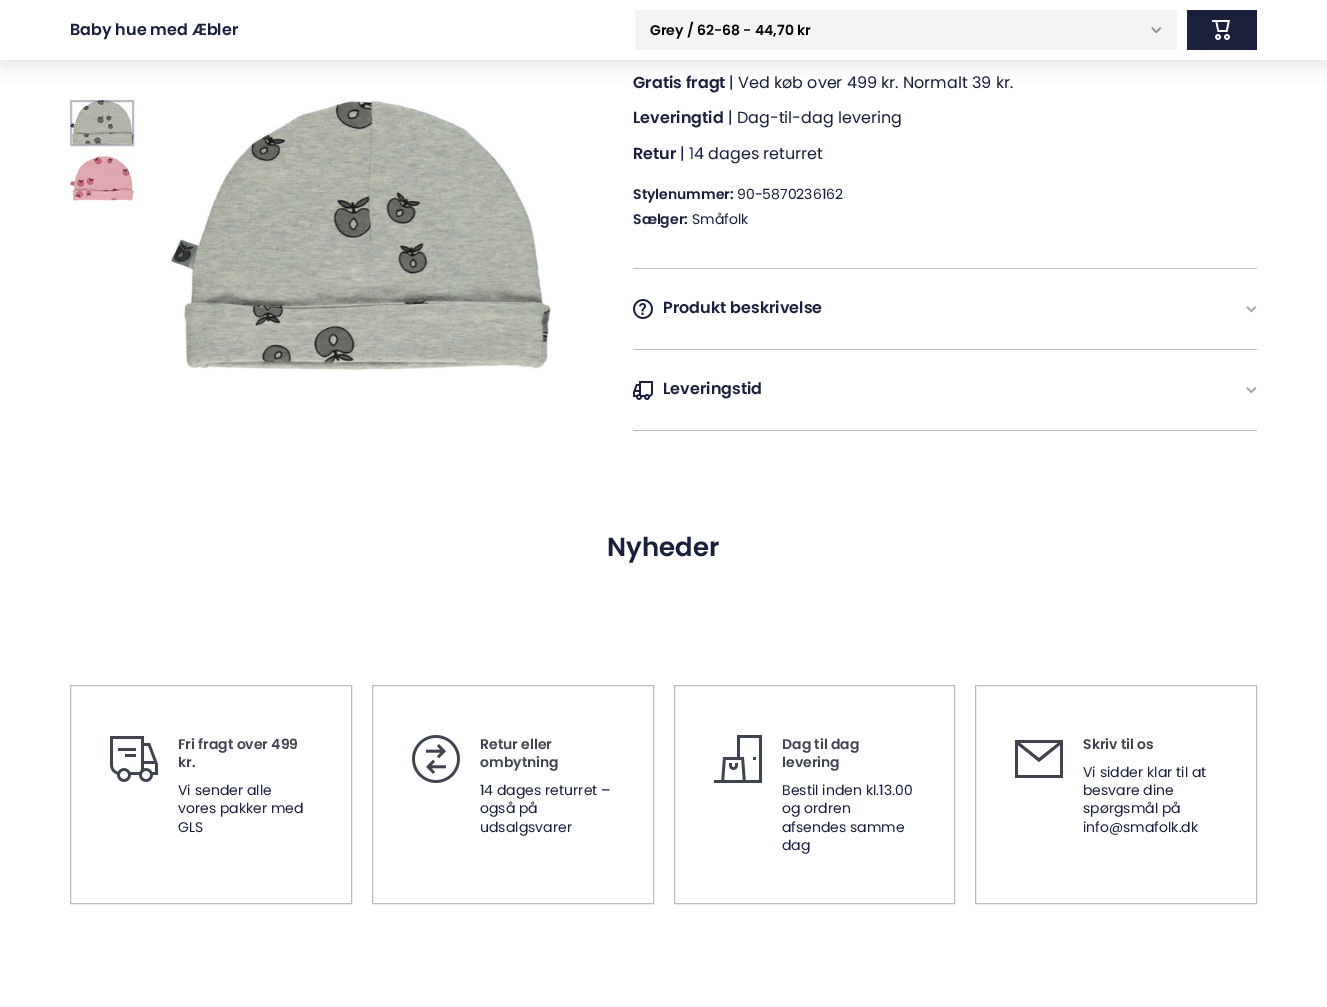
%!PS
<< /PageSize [1327 1007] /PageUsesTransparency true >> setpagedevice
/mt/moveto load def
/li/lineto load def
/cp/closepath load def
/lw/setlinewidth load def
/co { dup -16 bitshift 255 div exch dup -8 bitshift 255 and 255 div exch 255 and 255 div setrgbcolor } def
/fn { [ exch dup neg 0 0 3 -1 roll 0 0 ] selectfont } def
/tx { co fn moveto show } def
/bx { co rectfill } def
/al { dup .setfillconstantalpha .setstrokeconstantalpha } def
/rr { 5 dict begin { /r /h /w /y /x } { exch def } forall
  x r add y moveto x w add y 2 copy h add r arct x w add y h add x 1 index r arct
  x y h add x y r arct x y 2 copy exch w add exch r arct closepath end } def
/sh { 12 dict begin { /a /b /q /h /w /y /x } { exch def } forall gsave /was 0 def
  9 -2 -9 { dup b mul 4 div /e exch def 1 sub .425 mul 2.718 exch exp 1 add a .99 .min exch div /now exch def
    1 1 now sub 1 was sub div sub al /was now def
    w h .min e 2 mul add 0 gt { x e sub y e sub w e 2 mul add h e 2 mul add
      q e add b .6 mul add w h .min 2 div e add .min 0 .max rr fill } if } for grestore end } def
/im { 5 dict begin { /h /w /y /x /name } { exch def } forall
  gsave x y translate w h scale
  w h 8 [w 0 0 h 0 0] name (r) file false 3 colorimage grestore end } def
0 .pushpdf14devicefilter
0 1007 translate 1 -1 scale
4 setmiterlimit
0 0 1327 1007 16#FFFFFF bx
16#161345 co
0 4 1327 60 0 10 .13 sh
0 0 1327 60 16#FFFFFF bx
635 10 542 40 16#F4F4F4 bx
(media/1.raw) 1151 27 11 7 im
1187 10 70 40 16#1A1F3C bx
(media/2.raw) 1212 20 18 20 im
(media/3.raw) 70 100 64 45 im
0.3 al
2 lw
71 101 62 44 rectstroke
1 al
(media/4.raw) 70 156 64 45 im
(media/5.raw) 170 100 381 272 im
633 268 624 1 16#BABCC5 bx
(media/6.raw) 633 299 20 20 im
(media/7.raw) 1246 306 11 7 im
633 349 624 1 16#BABCC5 bx
(media/8.raw) 633 381 20 19 im
(media/7.raw) 1246 387 11 7 im
633 430 624 1 16#BABCC5 bx
(media/9.raw) 110 736 48 46 im
1 lw
70.5 685.5 281 218 rectstroke
(media/10.raw) 412 735 48 48 im
372.5 685.5 281 218 rectstroke
(media/11.raw) 714 735 48 48 im
674.5 685.5 280 218 rectstroke
16#40444E co
1015 778 mt 1015 740 li 1063 740 li 1063 778 li cp 1058 743 mt 1020 743 li 1039 758 li cp 1018 745 mt 1018 775 li 1060 775 li 1060 745 li 1039 762 li cp eofill
16#BABCC5 co
975.5 685.5 281 218 rectstroke
(Baby hue med Æbler) 70 35 /Poppins-SemiBold 16 16#1A1F3C tx
(Grey / 62-68 - 44,70 kr) 650 35 /Poppins-SemiBold 14 16#000000 tx
(Gratis fragt) 633 88 /Poppins-SemiBold 16 16#1A1F3C tx
(| Ved køb over 499 kr. Normalt 39 kr.) 729 88 /Poppins-Regular 16 16#1A1F3C tx
(Leveringtid) 633 123 /Poppins-SemiBold 16 16#1A1F3C tx
(| Dag-til-dag levering) 728 123 /Poppins-Regular 16 16#1A1F3C tx
(Retur) 633 159 /Poppins-SemiBold 16 16#1A1F3C tx
(| 14 dages returret) 680 159 /Poppins-Regular 16 16#1A1F3C tx
(Stylenummer:) 633 199 /Poppins-SemiBold 14 16#1A1F3C tx
(90-5870236162) 737 199 /Poppins-Regular 14 16#1A1F3C tx
(Sælger:) 633 224 /Poppins-SemiBold 14 16#1A1F3C tx
(Småfolk) 692 224 /Poppins-Regular 14 16#1A1F3C tx
(Produkt beskrivelse) 663 313 /Poppins-SemiBold 16 16#1A1F3C tx
(Leveringstid) 663 394 /Poppins-SemiBold 16 16#1A1F3C tx
(Nyheder) 607 556 /Poppins-SemiBold 26 16#1A1F3C tx
(Fri fragt over 499) 178 749 /Poppins-SemiBold 14 16#40444E tx
(kr.) 178 767 /Poppins-SemiBold 14 16#40444E tx
(Vi sender alle) 178 795 /Poppins-Regular 14 16#1A1F3C tx
(vores pakker med) 178 813 /Poppins-Regular 14 16#1A1F3C tx
(GLS) 178 832 /Poppins-Regular 14 16#1A1F3C tx
(Retur eller) 480 749 /Poppins-SemiBold 14 16#40444E tx
(ombytning) 480 767 /Poppins-SemiBold 14 16#40444E tx
(14 dages returret –) 480 795 /Poppins-Regular 14 16#1A1F3C tx
(også på) 480 813 /Poppins-Regular 14 16#1A1F3C tx
(udsalgsvarer) 480 832 /Poppins-Regular 14 16#1A1F3C tx
(Dag til dag) 782 749 /Poppins-SemiBold 14 16#40444E tx
(levering) 782 767 /Poppins-SemiBold 14 16#40444E tx
(Bestil inden kl.13.00) 782 795 /Poppins-Regular 14 16#1A1F3C tx
(og ordren) 782 813 /Poppins-Regular 14 16#1A1F3C tx
(afsendes samme) 782 832 /Poppins-Regular 14 16#1A1F3C tx
(dag) 782 850 /Poppins-Regular 14 16#1A1F3C tx
(Skriv til os) 1083 749 /Poppins-SemiBold 14 16#40444E tx
(Vi sidder klar til at) 1083 777 /Poppins-Regular 14 16#1A1F3C tx
(besvare dine) 1083 795 /Poppins-Regular 14 16#1A1F3C tx
(spørgsmål på) 1083 813 /Poppins-Regular 14 16#1A1F3C tx
(info@smafolk.dk) 1083 832 /Poppins-Regular 14 16#1A1F3C tx
.poppdf14devicefilter showpage
